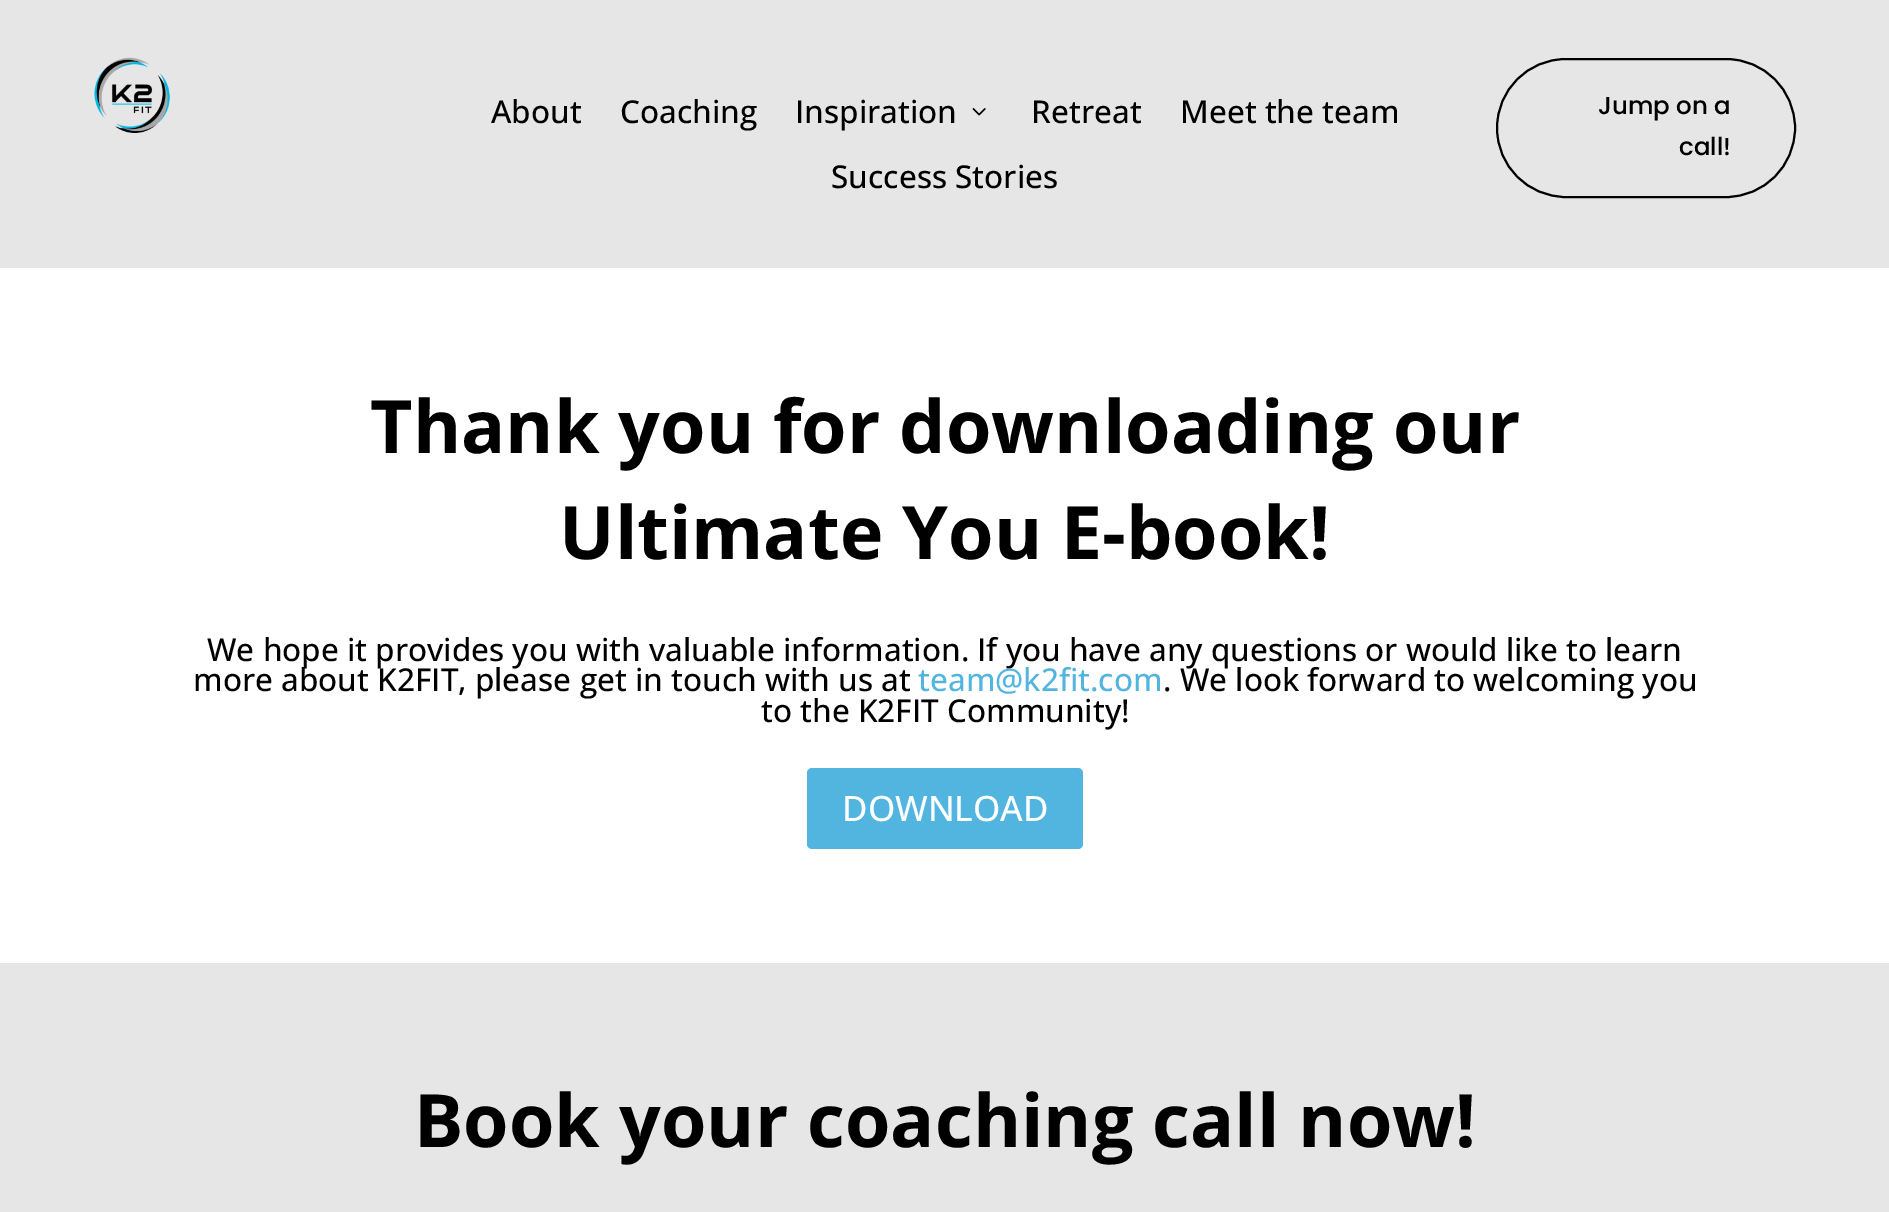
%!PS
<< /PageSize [1889 1212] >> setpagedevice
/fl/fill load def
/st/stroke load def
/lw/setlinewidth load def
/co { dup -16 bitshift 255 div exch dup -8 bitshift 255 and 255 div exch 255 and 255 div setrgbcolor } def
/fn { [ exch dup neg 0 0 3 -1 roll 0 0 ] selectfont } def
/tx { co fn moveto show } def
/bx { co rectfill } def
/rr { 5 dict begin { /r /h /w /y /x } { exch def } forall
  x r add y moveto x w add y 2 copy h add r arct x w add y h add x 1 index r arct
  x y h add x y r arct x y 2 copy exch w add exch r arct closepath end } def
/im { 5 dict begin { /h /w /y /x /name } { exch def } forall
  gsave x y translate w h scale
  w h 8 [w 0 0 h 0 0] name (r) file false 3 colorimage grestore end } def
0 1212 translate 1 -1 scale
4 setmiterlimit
0 0 1889 1212 16#FFFFFF bx
0 0 1889 268 16#E6E6E6 bx
(media/1.raw) 94 57 76 76 im
(media/2.raw) 972 108 14 8 im
16#000000 co
2 lw
1497 59 298 138 69 rr st
16#52B5DF co
807 768 276 81 5 rr fl
0 963 1889 249 16#E6E6E6 bx
(About) 491 123 /OpenSans-Medium 31.5 16#000000 tx
(Coaching) 620 123 /OpenSans-Medium 31.5 16#000000 tx
(Inspiration) 795 123 /OpenSans-Medium 31.5 16#000000 tx
(Retreat) 1031 123 /OpenSans-Medium 31.5 16#000000 tx
(Meet the team) 1180 123 /OpenSans-Medium 31.5 16#000000 tx
(Success Stories) 831 188 /OpenSans-Medium 31.5 16#000000 tx
(Jump on a) 1598 114 /Poppins-Medium 24.5 16#000000 tx
(call!) 1679 155 /Poppins-Medium 24.5 16#000000 tx
(Thank you for downloading our) 370 453 /OpenSans-Bold 73.5 16#000000 tx
(Ultimate You E-book!) 559 559 /OpenSans-Bold 73.5 16#000000 tx
(We hope it provides you with valuable information. If you have any questions or would like to learn) 207 661 /OpenSans-Medium 31.5 16#000000 tx
(more about K2FIT, please get in touch with us at) 193 691 /OpenSans-Medium 31.5 16#000000 tx
(team@k2fit.com) 918 691 /OpenSans-Medium 31.5 16#52B5DF tx
(. We look forward to welcoming you) 1163 691 /OpenSans-Medium 31.5 16#000000 tx
(to the K2FIT Community!) 761 722 /OpenSans-Medium 31.5 16#000000 tx
(DOWNLOAD) 842 821 /OpenSans-Medium 35 16#FFFFFF tx
(Book your coaching call now!) 414 1147 /OpenSans-Bold 73.5 16#000000 tx
showpage
